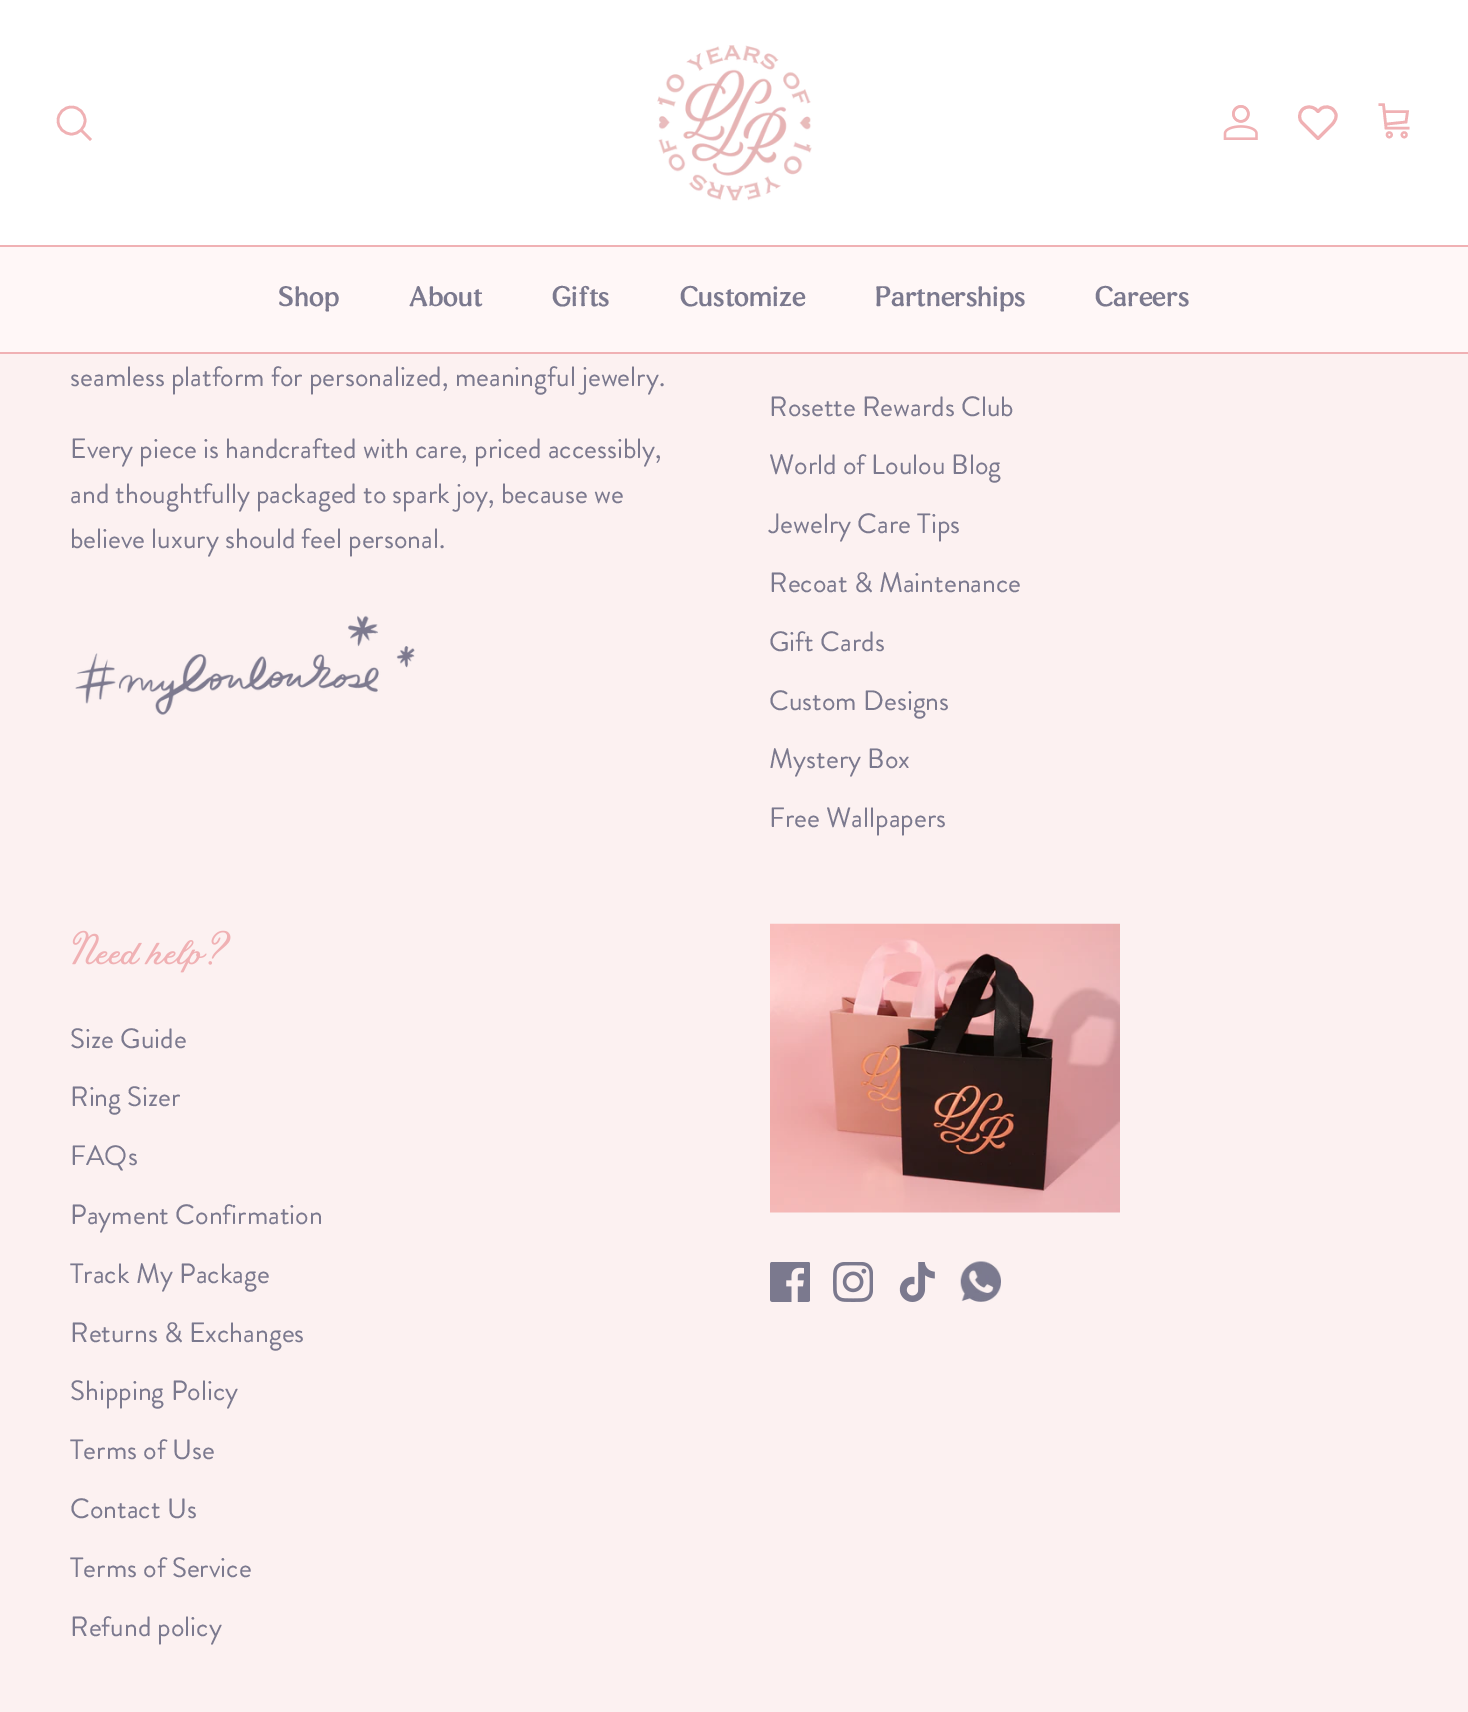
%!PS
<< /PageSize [1468 1712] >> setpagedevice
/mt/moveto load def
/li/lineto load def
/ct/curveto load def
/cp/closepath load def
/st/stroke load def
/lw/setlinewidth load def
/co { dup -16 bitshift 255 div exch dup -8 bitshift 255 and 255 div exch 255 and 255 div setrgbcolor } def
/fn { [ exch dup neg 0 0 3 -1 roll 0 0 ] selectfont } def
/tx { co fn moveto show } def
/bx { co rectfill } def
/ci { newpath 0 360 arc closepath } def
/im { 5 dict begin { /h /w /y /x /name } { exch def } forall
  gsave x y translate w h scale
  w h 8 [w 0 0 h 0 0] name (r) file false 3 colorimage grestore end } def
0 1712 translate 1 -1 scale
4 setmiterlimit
0 0 1468 1712 16#FCF1F1 bx
0 0 1468 245 16#FFFFFF bx
0 245 1468 2 16#F0B1B4 bx
2.6 lw
71.5 120.5 13.5 ci st
2 setlinecap
82 131 mt 90 139 li st
(media/1.raw) 657 45 155 156 im
(media/2.raw) 1223 105 35 35 im
3 lw
1 setlinecap
1 setlinejoin
1333 109.5 mt 1330 106.5 1325 106 1321 108.5 ct 1318 111.5 li 1316 109.5 li 1312 106 1306 106 1302.5 109.5 ct 1298.5 113.5 1298.5 119.5 1302.5 123 ct 1318 138.5 li 1327 129.5 li 1331 125.5 1337 121 1336 114.5 ct 1335.5 112.5 1334.5 111 1333 109.5 ct cp st
2.6 lw
2 setlinecap
0 setlinejoin
1380 104.5 mt 1383.5 104.5 li 1386 128 li 1408 128 li 1384.5 111.5 mt 1407.5 111.5 li 1406 122 li 1387 124 li st
2.2 lw
0 setlinecap
1389.3 134.8 2.4 ci st
1404.2 134.8 2.4 ci st
0 352 1468 2 16#F0B1B4 bx
0 247 1468 105 16#FFF7F7 bx
(media/3.raw) 75 615 340 100 im
(media/4.raw) 72 930 159 43 im
(media/5.raw) 770 923 350 290 im
(media/6.raw) 770 1262 40 40 im
(media/7.raw) 833 1262 40 40 im
(media/8.raw) 899 1262 36 40 im
(media/9.raw) 960 1261 41 41 im
(Shop) 278 306 /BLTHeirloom-Regular 28 16#7B798E tx
(About) 409 306 /BLTHeirloom-Regular 28 16#7B798E tx
(Gifts) 552 306 /BLTHeirloom-Regular 28 16#7B798E tx
(Customize) 680 306 /BLTHeirloom-Regular 28 16#7B798E tx
(Partnerships) 875 306 /BLTHeirloom-Regular 28 16#7B798E tx
(Careers) 1095 306 /BLTHeirloom-Regular 28 16#7B798E tx
(seamless platform for personalized, meaningful jewelry.) 70 386 /BrandonGrotesque-Regular 28 16#7B798E tx
(Every piece is handcrafted with care, priced accessibly,) 70 458 /BrandonGrotesque-Regular 28 16#7B798E tx
(and thoughtfully packaged to spark joy, because we) 70 503 /BrandonGrotesque-Regular 28 16#7B798E tx
(believe luxury should feel personal.) 70 548 /BrandonGrotesque-Regular 28 16#7B798E tx
(Rosette Rewards Club) 769 416 /BrandonGrotesque-Regular 28 16#7B798E tx
(World of Loulou Blog) 769 474 /BrandonGrotesque-Regular 28 16#7B798E tx
(Jewelry Care Tips) 769 533 /BrandonGrotesque-Regular 28 16#7B798E tx
(Recoat & Maintenance) 769 592 /BrandonGrotesque-Regular 28 16#7B798E tx
(Gift Cards) 769 651 /BrandonGrotesque-Regular 28 16#7B798E tx
(Custom Designs) 769 710 /BrandonGrotesque-Regular 28 16#7B798E tx
(Mystery Box) 769 768 /BrandonGrotesque-Regular 28 16#7B798E tx
(Free Wallpapers) 769 827 /BrandonGrotesque-Regular 28 16#7B798E tx
(Size Guide) 70 1048 /BrandonGrotesque-Regular 28 16#7B798E tx
(Ring Sizer) 70 1106 /BrandonGrotesque-Regular 28 16#7B798E tx
(FAQs) 70 1165 /BrandonGrotesque-Regular 28 16#7B798E tx
(Payment Confirmation) 70 1224 /BrandonGrotesque-Regular 28 16#7B798E tx
(Track My Package) 70 1283 /BrandonGrotesque-Regular 28 16#7B798E tx
(Returns & Exchanges) 70 1342 /BrandonGrotesque-Regular 28 16#7B798E tx
(Shipping Policy) 70 1400 /BrandonGrotesque-Regular 28 16#7B798E tx
(Terms of Use) 70 1459 /BrandonGrotesque-Regular 28 16#7B798E tx
(Contact Us) 70 1518 /BrandonGrotesque-Regular 28 16#7B798E tx
(Terms of Service) 70 1577 /BrandonGrotesque-Regular 28 16#7B798E tx
(Refund policy) 70 1636 /BrandonGrotesque-Regular 28 16#7B798E tx
showpage
